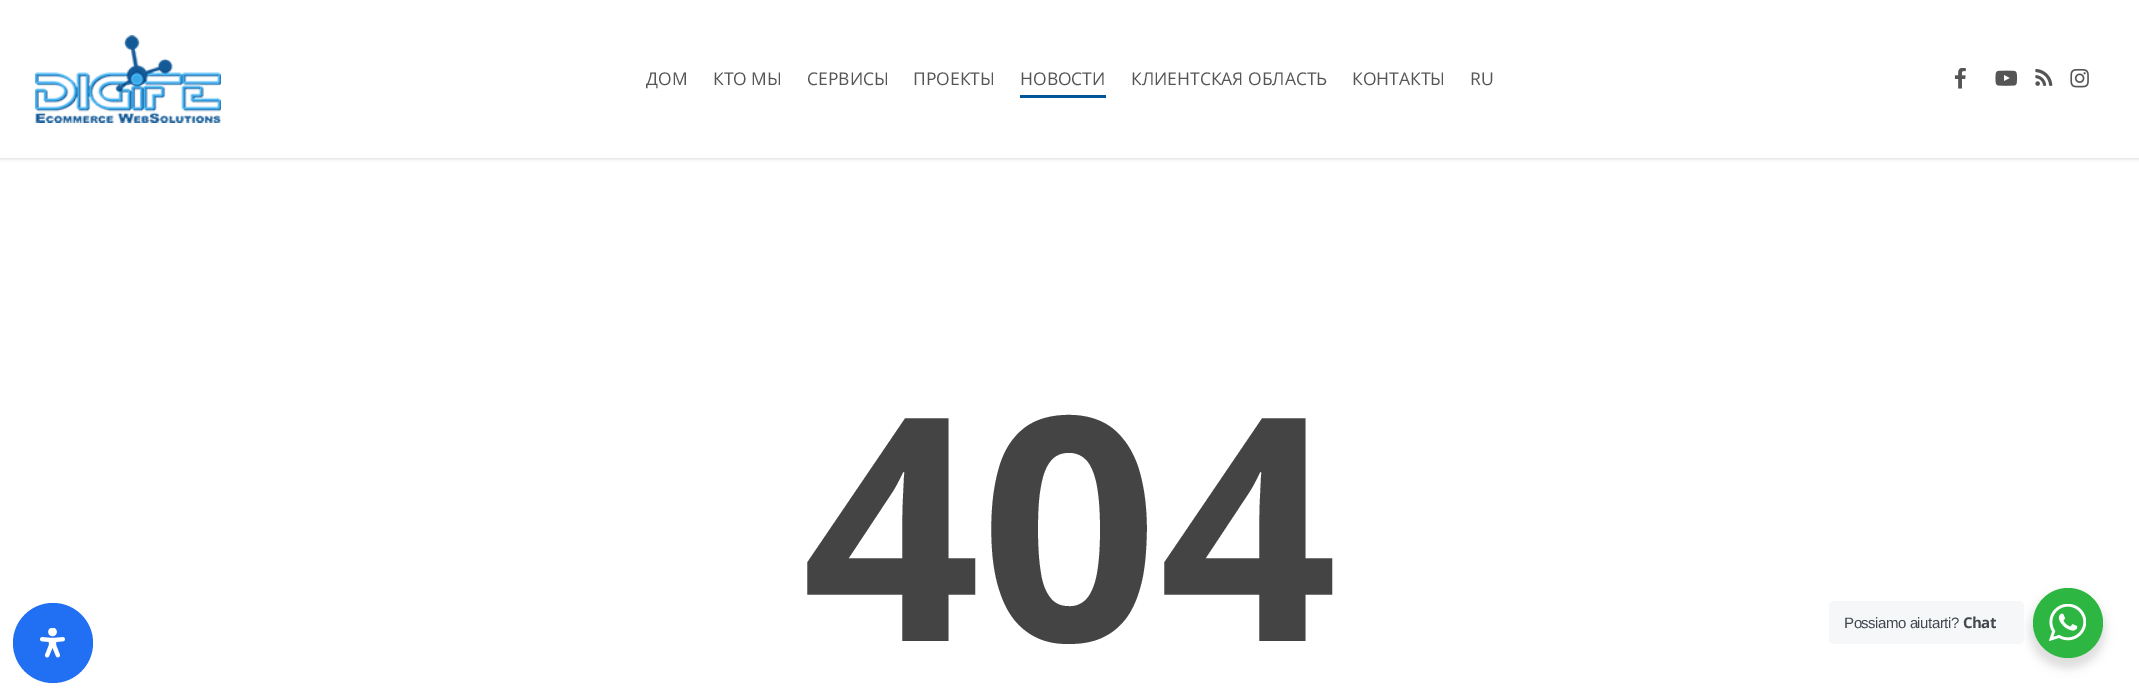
%!PS
<< /PageSize [2139 695] /PageUsesTransparency true >> setpagedevice
/mt/moveto load def
/fl/fill load def
/co { dup -16 bitshift 255 div exch dup -8 bitshift 255 and 255 div exch 255 and 255 div setrgbcolor } def
/fn { [ exch dup neg 0 0 3 -1 roll 0 0 ] selectfont } def
/tx { co fn moveto show } def
/bx { co rectfill } def
/al { dup .setfillconstantalpha .setstrokeconstantalpha } def
/ci { newpath 0 360 arc closepath } def
/rr { 5 dict begin { /r /h /w /y /x } { exch def } forall
  x r add y moveto x w add y 2 copy h add r arct x w add y h add x 1 index r arct
  x y h add x y r arct x y 2 copy exch w add exch r arct closepath end } def
/sh { 12 dict begin { /a /b /q /h /w /y /x } { exch def } forall gsave /was 0 def
  9 -2 -9 { dup b mul 4 div /e exch def 1 sub .425 mul 2.718 exch exp 1 add a .99 .min exch div /now exch def
    1 1 now sub 1 was sub div sub al /was now def
    w h .min e 2 mul add 0 gt { x e sub y e sub w e 2 mul add h e 2 mul add
      q e add b .6 mul add w h .min 2 div e add .min 0 .max rr fill } if } for grestore end } def
/im { 5 dict begin { /h /w /y /x /name } { exch def } forall
  gsave x y translate w h scale
  w h 8 [w 0 0 h 0 0] name (r) file false 3 colorimage grestore end } def
0 .pushpdf14devicefilter
0 695 translate 1 -1 scale
4 setmiterlimit
0 0 2139 695 16#FFFFFF bx
16#000000 co
0 0 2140 158 0 2 .22 sh
0 0 2139 158 16#FFFFFF bx
(media/1.raw) 35 35 186 88 im
1020 95 86 3 16#005698 bx
(media/2.raw) 1954 68 12 21 im
(media/3.raw) 1995 70 23 16 im
(media/4.raw) 2035 68 18 18 im
(media/5.raw) 2070 68 19 20 im
16#216FF3 co
53 643 40 ci fl
(media/6.raw) 40 628 25 30 im
16#000000 co
2030 593 75 75 37.5 5 .14 sh
16#F5F7F9 co
1829 601 195 43 5 rr fl
16#2DB742 co
2068 623 35 ci fl
(media/7.raw) 2049 604 37 37 im
(ДОМ) 646 85 /OpenSans-Regular 17.5 16#555555 tx
(КТО МЫ) 713 85 /OpenSans-Regular 17.5 16#555555 tx
(СЕРВИСЫ) 807 85 /OpenSans-Regular 17.5 16#555555 tx
(ПРОЕКТЫ) 913 85 /OpenSans-Regular 17.5 16#555555 tx
(НОВОСТИ) 1020 85 /OpenSans-Regular 17.5 16#555555 tx
(КЛИЕНТСКАЯ ОБЛАСТЬ) 1131 85 /OpenSans-Regular 17.5 16#555555 tx
(КОНТАКТЫ) 1352 85 /OpenSans-Regular 17.5 16#555555 tx
(RU) 1470 85 /OpenSans-Regular 17.5 16#555555 tx
(404) 802 641 /OpenSans-Bold 312 16#444444 tx
/LiberationSans-Regular 15 fn
16#43474E co
1844 628 mt -.5 0 (Possiamo aiutarti?) ashow
/OpenSans-Bold 15 fn
1963 628 mt -.5 0 (Chat) ashow
.poppdf14devicefilter showpage
